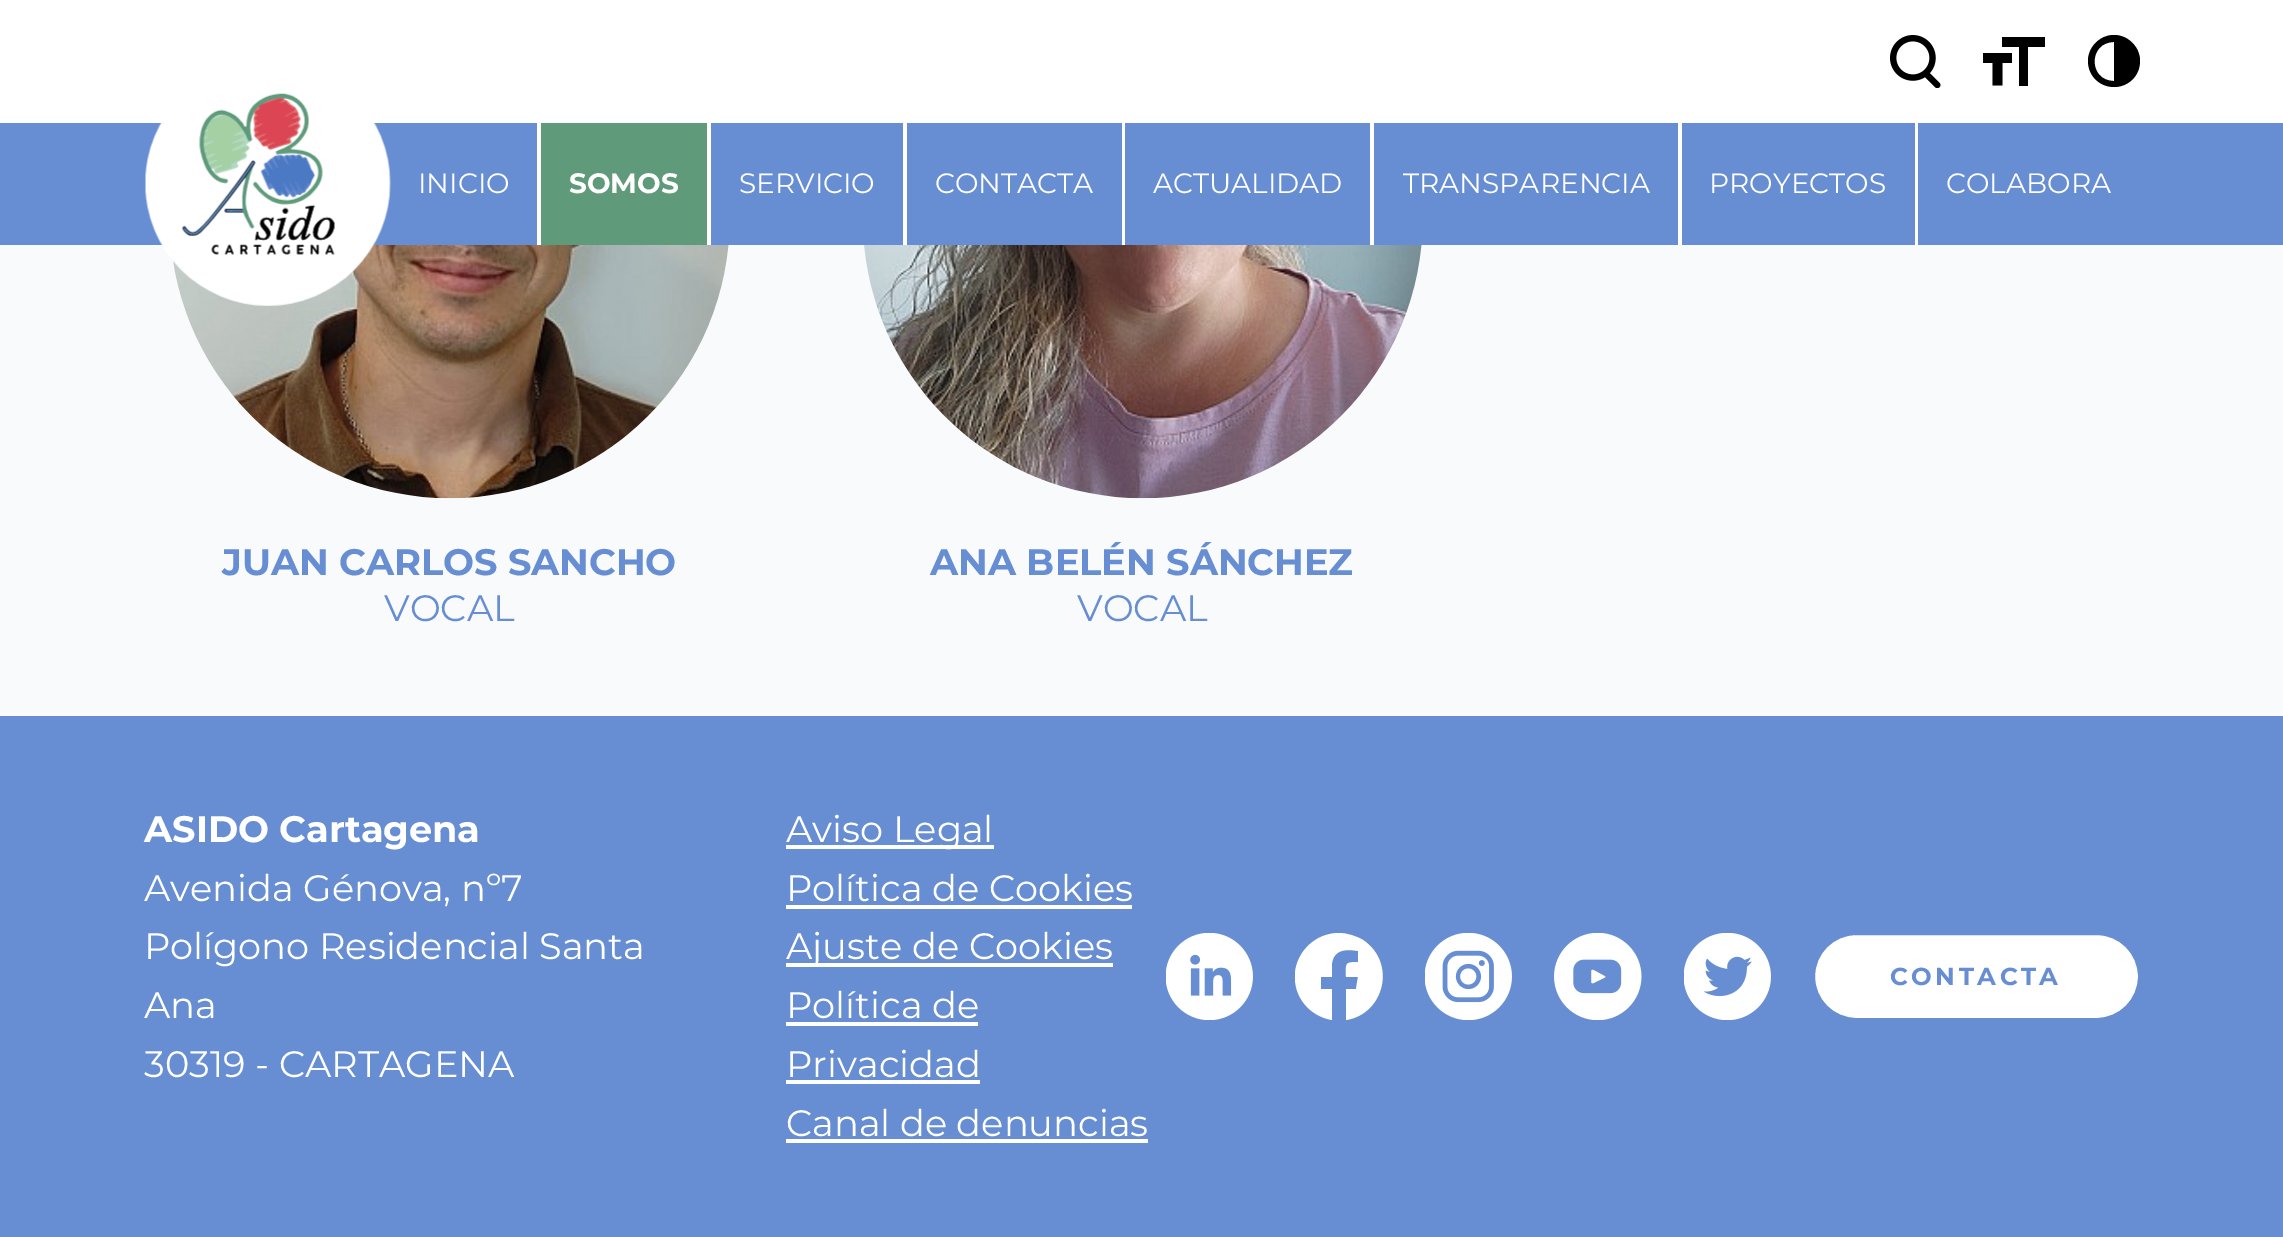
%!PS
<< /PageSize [2283 1237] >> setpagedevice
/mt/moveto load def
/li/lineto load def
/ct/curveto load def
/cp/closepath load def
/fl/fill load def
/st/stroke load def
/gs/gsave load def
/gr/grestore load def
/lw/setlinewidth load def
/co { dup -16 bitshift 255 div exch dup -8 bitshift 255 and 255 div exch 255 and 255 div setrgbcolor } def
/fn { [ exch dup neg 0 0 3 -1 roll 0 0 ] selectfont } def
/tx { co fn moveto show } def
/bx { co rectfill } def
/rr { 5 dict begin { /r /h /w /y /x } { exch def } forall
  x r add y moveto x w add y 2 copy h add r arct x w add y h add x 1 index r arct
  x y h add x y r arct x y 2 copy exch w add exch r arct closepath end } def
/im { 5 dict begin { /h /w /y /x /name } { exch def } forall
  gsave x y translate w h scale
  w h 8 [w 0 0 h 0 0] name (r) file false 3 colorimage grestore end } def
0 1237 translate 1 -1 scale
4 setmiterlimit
0 0 2283 1237 16#F8FAFC bx
0 0 2283 123 16#FFFFFF bx
(media/1.raw) 1890 35 51 53 im
gs
1983 37 63 49 rectclip
16#000000 co
1982.5 63 mt 1992.5 63 li 1992.5 85.5 li 2002.5 85.5 li 2002.5 63 li 2012 63 li 2012 53 li 1982.5 53 li cp fl
gr
16#000000 co
2002 37 mt 2002 47 li 2019 47 li 2019 86 li 2028 86 li 2028 47 li 2045 47 li 2045 37 li cp fl
2114 35 mt 2100 35 2088 47 2088 61 ct 2088 76 2100 87 2114 87 ct 2128 87 2140 76 2140 61 ct 2140 47 2128 35 2114 35 ct 2114 81 mt 2088 81 2088 42 2114 42 ct cp fl
0 123 2283 122 16#678ED2 bx
(media/3.raw) 172 245 557 254 im
(media/2.raw) 145 93 246 213 im
537 123 1381 122 16#FFFFFF bx
541 123 166 122 16#5F9A7B bx
711 123 192 122 16#678ED2 bx
907 123 215 122 16#678ED2 bx
1125 123 245 122 16#678ED2 bx
1374 123 304 122 16#678ED2 bx
1682 123 233 122 16#678ED2 bx
(media/4.raw) 864 245 558 254 im
0 716 2283 521 16#678ED2 bx
786 845 208 4 16#FFFFFF bx
786 905 346 4 16#FFFFFF bx
786 963 327 4 16#FFFFFF bx
786 1022 192 4 16#FFFFFF bx
786 1080 194 4 16#FFFFFF bx
786 1139 362 4 16#FFFFFF bx
(media/5.raw) 1166 933 87 87 im
gs
1295 933 88 87 rectclip
1339 933 mt 1316 933 1297 951 1295 973 ct 1293 996 1309 1016 1332 1020 ct 1332 989 li 1321 989 li 1321 977 li 1332 977 li 1332 963 li 1334 949 1347 949 1358 951 ct 1358 962 li 1344 962 1346 964 1346 977 ct 1358 977 li 1356 989 li 1346 989 li 1346 1020 li 1384 1014 1397 963 1363 940 ct 1356 936 1347 933 1339 933 ct fl
gr
(media/6.raw) 1425 933 87 87 im
(media/7.raw) 1554 933 88 87 im
(media/8.raw) 1684 933 87 87 im
1814 934 325 85 42.5 rr gs fl gr
16#678ED2 co
2 lw
st
(INICIO) 418 193 /Montserrat-Regular 28 16#FFFFFF tx
(SOMOS) 569 193 /Montserrat-Bold 28 16#FFFFFF tx
(SERVICIO) 739 193 /Montserrat-Regular 28 16#FFFFFF tx
(CONTACTA) 935 193 /Montserrat-Regular 28 16#FFFFFF tx
(ACTUALIDAD) 1153 193 /Montserrat-Regular 28 16#FFFFFF tx
(TRANSPARENCIA) 1403 193 /Montserrat-Regular 28 16#FFFFFF tx
(PROYECTOS) 1709 193 /Montserrat-Regular 28 16#FFFFFF tx
(COLABORA) 1946 193 /Montserrat-Regular 28 16#FFFFFF tx
(JUAN CARLOS SANCHO) 222 575 /Montserrat-Bold 36.75 16#678ED2 tx
(VOCAL) 384 621 /Montserrat-Regular 36.75 16#678ED2 tx
(ANA BELÉN SÁNCHEZ) 930 575 /Montserrat-Bold 36.75 16#678ED2 tx
(VOCAL) 1077 621 /Montserrat-Regular 36.75 16#678ED2 tx
(ASIDO Cartagena) 144 842 /Montserrat-Bold 36.75 16#FFFFFF tx
(Avenida Génova, nº7) 144 901 /Montserrat-Regular 36.75 16#FFFFFF tx
(Polígono Residencial Santa) 144 959 /Montserrat-Regular 36.75 16#FFFFFF tx
(Ana) 144 1018 /Montserrat-Regular 36.75 16#FFFFFF tx
(30319 - CARTAGENA) 144 1077 /Montserrat-Regular 36.75 16#FFFFFF tx
(Aviso Legal) 786 842 /Montserrat-Regular 36.75 16#FFFFFF tx
(Política de Cookies) 786 901 /Montserrat-Regular 36.75 16#FFFFFF tx
(Ajuste de Cookies) 786 959 /Montserrat-Regular 36.75 16#FFFFFF tx
(Política de) 786 1018 /Montserrat-Regular 36.75 16#FFFFFF tx
(Privacidad) 786 1077 /Montserrat-Regular 36.75 16#FFFFFF tx
(Canal de denuncias) 786 1136 /Montserrat-Regular 36.75 16#FFFFFF tx
/Montserrat-Bold 24.5 fn
16#678ED2 co
1890 985 mt 3.5 0 (CONTACTA) ashow
showpage
